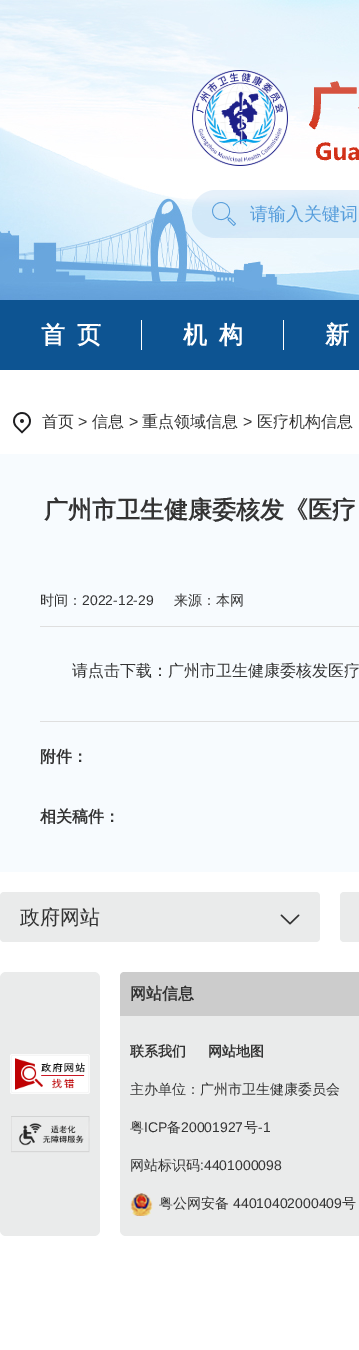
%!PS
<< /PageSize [359 1350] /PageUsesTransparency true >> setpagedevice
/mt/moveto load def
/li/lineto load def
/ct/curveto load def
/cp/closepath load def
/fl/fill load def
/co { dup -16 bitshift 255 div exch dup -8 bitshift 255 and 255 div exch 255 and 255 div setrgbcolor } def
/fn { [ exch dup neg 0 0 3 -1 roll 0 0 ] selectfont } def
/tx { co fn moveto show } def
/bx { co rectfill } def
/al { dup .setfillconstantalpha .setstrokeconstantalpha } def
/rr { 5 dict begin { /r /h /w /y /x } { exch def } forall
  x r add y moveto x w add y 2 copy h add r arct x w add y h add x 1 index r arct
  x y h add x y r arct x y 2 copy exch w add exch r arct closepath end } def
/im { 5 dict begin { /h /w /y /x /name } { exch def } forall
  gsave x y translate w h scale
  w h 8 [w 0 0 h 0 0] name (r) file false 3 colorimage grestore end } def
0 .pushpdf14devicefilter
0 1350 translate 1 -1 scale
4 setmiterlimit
0 0 359 1350 16#FFFFFF bx
(media/1.raw) 0 0 359 300 im
(media/2.raw) 192 70 167 96 im
0.15 al
16#569DDB co
192 190 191 48 24 rr fl
1 al
(media/3.raw) 212 202 24 24 im
0 300 359 70 16#0D5492 bx
141 320 1 30 16#FFFFFF bx
283 320 1 30 16#FFFFFF bx
(media/4.raw) 13 412 18 22 im
0 454 359 418 16#F7FBFE bx
40 626 319 1 16#DFDFDF bx
40 721 319 1 16#DFDFDF bx
16#EAEBEB co
0 892 320 50 4 rr fl
(media/5.raw) 280 914 20 11 im
340 892 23 50 4 rr fl
0 972 100 264 6 rr fl
(media/6.raw) 10 1054 80 40 im
(media/7.raw) 11 1116 79 37 im
120 972 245 264 6 rr fl
16#CCCCCC co
124 972 mt 359 972 li 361 972 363 974 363 976 ct 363 1016 li 120 1016 li 120 976 li 120 974 122 972 124 972 ct cp fl
(media/8.raw) 130 1193 23 23 im
(请输入关键词) 250 220 /WenQuanYiZenHei-Medium 18 16#569DDB tx
(首) 41 343 /WenQuanYiZenHei-Bold 24 16#FFFFFF tx
(页) 77 343 /WenQuanYiZenHei-Bold 24 16#FFFFFF tx
(机) 183 343 /WenQuanYiZenHei-Bold 24 16#FFFFFF tx
(构) 219 343 /WenQuanYiZenHei-Bold 24 16#FFFFFF tx
(新) 325 343 /WenQuanYiZenHei-Bold 24 16#FFFFFF tx
(首页) 42 427 /WenQuanYiZenHei-Medium 16 16#333333 tx
(>) 78 427 /LiberationSans-Regular 16 16#333333 tx
(信息) 92 427 /WenQuanYiZenHei-Medium 16 16#333333 tx
(>) 129 427 /LiberationSans-Regular 16 16#333333 tx
(重点领域信息) 142 427 /WenQuanYiZenHei-Medium 16 16#333333 tx
(>) 243 427 /LiberationSans-Regular 16 16#333333 tx
(医疗机构信息) 257 427 /WenQuanYiZenHei-Medium 16 16#333333 tx
(广州市卫生健康委核发《医疗) 44 518 /WenQuanYiZenHei-Bold 24 16#333333 tx
(时间：) 40 605 /WenQuanYiZenHei-Medium 14 16#333333 tx
(2022-12-29) 82 605 /LiberationSans-Regular 14 16#333333 tx
(来源：本网) 174 605 /WenQuanYiZenHei-Medium 14 16#333333 tx
(请点击下载：广州市卫生健康委核发医疗) 72 676 /WenQuanYiZenHei-Medium 16 16#333333 tx
(附件：) 40 762 /WenQuanYiZenHei-Bold 16 16#333333 tx
(相关稿件：) 40 822 /WenQuanYiZenHei-Bold 16 16#333333 tx
(政府网站) 20 924 /WenQuanYiZenHei-Medium 20 16#333333 tx
(网站信息) 130 999 /WenQuanYiZenHei-Bold 16 16#333333 tx
(联系我们) 130 1056 /WenQuanYiZenHei-Bold 14 16#333333 tx
(网站地图) 208 1056 /WenQuanYiZenHei-Bold 14 16#333333 tx
(主办单位：广州市卫生健康委员会) 130 1094 /WenQuanYiZenHei-Medium 14 16#333333 tx
(粤) 130 1132 /WenQuanYiZenHei-Medium 14 16#333333 tx
(ICP) 144 1132 /LiberationSans-Regular 14 16#333333 tx
(备) 167 1132 /WenQuanYiZenHei-Medium 14 16#333333 tx
(20001927) 181 1132 /LiberationSans-Regular 14 16#333333 tx
(号) 244 1132 /WenQuanYiZenHei-Medium 14 16#333333 tx
(-1) 258 1132 /LiberationSans-Regular 14 16#333333 tx
(网站标识码) 130 1170 /WenQuanYiZenHei-Medium 14 16#333333 tx
(:4401000098) 200 1170 /LiberationSans-Regular 14 16#333333 tx
(粤公网安备) 159 1208 /WenQuanYiZenHei-Medium 14 16#333333 tx
(44010402000409) 233 1208 /LiberationSans-Regular 14 16#333333 tx
(号) 342 1208 /WenQuanYiZenHei-Medium 14 16#333333 tx
.poppdf14devicefilter showpage
